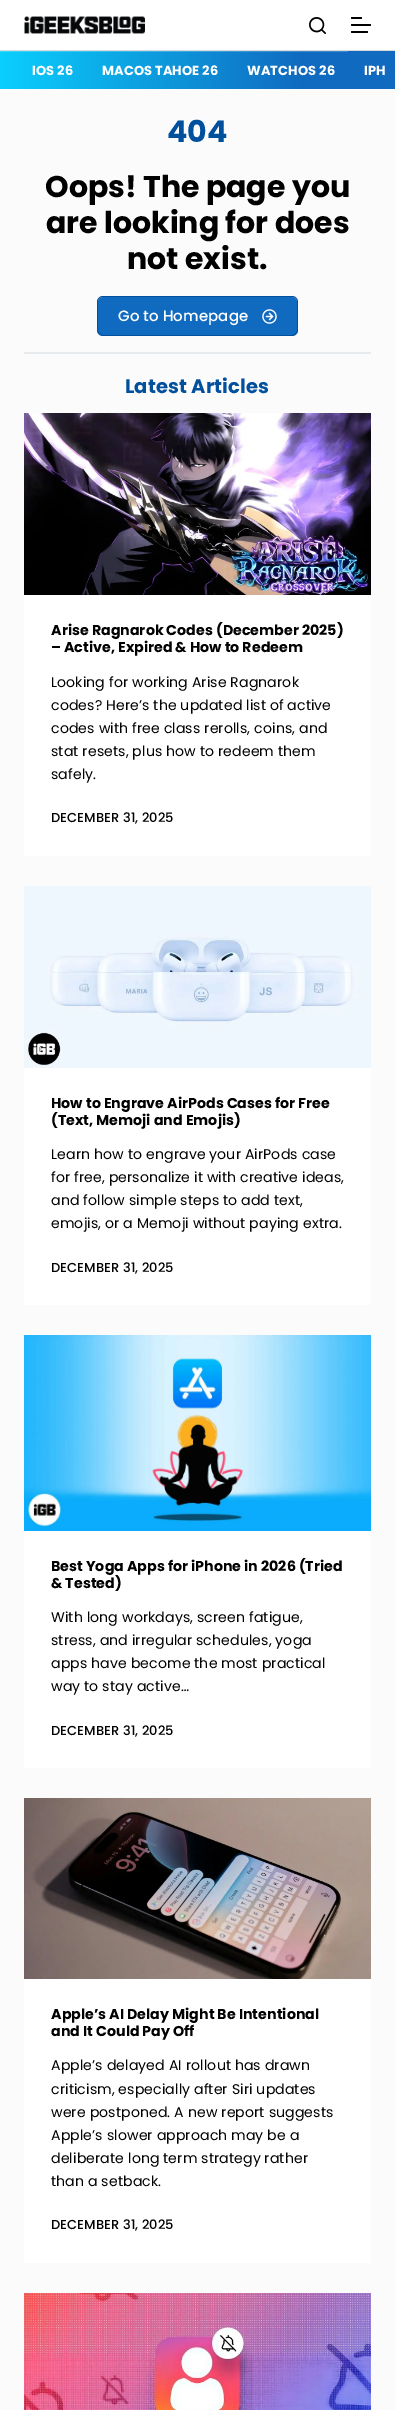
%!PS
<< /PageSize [395 2410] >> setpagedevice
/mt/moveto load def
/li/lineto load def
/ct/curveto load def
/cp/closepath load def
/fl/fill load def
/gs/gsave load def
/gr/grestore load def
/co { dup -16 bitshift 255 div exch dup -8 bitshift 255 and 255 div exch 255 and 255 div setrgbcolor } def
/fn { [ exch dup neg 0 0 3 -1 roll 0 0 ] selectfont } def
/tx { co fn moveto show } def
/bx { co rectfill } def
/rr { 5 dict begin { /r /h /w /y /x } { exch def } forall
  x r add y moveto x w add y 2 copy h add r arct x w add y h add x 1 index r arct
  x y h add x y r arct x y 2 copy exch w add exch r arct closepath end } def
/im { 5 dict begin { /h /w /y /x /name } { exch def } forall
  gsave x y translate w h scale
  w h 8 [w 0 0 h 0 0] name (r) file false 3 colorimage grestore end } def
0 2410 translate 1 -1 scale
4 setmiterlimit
0 0 395 2410 16#FBFBFC bx
0 0 395 50 16#FFFFFF bx
0 50 395 1 16#D5D8DC bx
(media/1.raw) 24 16 121 18 im
(media/2.raw) 309 17 17 17 im
16#000000 co
351 17 11 2 1 rr fl
351 24 20 2 1 rr fl
351 31 17 2 1 rr fl
gs 0 51 mt 395 51 li 395 89 li 0 89 li cp clip newpath
<< /ShadingType 2 /ColorSpace /DeviceRGB /Coords [0 70 395 70] /Extend [true true] /Function << /FunctionType 3 /Domain [0 1] /Functions [<< /FunctionType 2 /Domain [0 1] /C0 [.039 .812 .996] /C1 [.063 .416 .749] /N 1 >> << /FunctionType 2 /Domain [0 1] /C0 [.063 .416 .749] /C1 [.063 .416 .749] /N 1 >>] /Bounds [.77] /Encode [0 1 0 1] >> >> shfill gr
gs 0 51 mt 348 51 li 348 52 li 0 52 li cp clip newpath
<< /ShadingType 2 /ColorSpace /DeviceRGB /Coords [0 70 395 70] /Extend [true true] /Function << /FunctionType 3 /Domain [0 1] /Functions [<< /FunctionType 2 /Domain [0 1] /C0 [.231 .851 .996] /C1 [.251 .533 .8] /N 1 >> << /FunctionType 2 /Domain [0 1] /C0 [.251 .533 .8] /C1 [.251 .533 .8] /N 1 >>] /Bounds [.77] /Encode [0 1 0 1] >> >> shfill gr
16#00509D co
97 296 201 40 6 rr fl
16#6696C4 co
103 298 mt 292 298 li 295 298 297 300 297 303 ct 297 302 li 297 299 295 297 292 297 ct 103 297 li 100 297 98 299 98 302 ct 98 303 li 98 300 100 298 103 298 ct cp fl
16#106ABF co
98 297 199 38 6 rr fl
(media/3.raw) 262 309 15 15 im
24 352 347 2 16#E8EBED bx
(media/4.raw) 24 413 347 182 im
24 595 347 261 16#FFFFFF bx
(media/5.raw) 24 886 347 182 im
24 1068 347 237 16#FFFFFF bx
(media/6.raw) 24 1335 347 196 im
24 1531 347 237 16#FFFFFF bx
(media/7.raw) 24 1798 347 181 im
24 1979 347 284 16#FFFFFF bx
(media/8.raw) 24 2293 347 117 im
/Poppins-Bold 13 fn
32 75 mt .1 0 (IOS 26) ashow
102 75 mt .1 0 (MACOS TAHOE 26) ashow
247 75 mt .1 0 (WATCHOS 26) ashow
364 75 mt .1 0 (IPH) ashow
(404) 167 142 /Poppins-Bold 30 16#00509D tx
(Oops! The page you) 45 197 /Poppins-Bold 30 16#000000 tx
(are looking for does) 46 233 /Poppins-Bold 30 16#000000 tx
(not exist.) 127 269 /Poppins-Bold 30 16#000000 tx
/Poppins-Medium 15 fn
16#FFFFFF co
118 321 mt .1 0 (Go to Homepage) ashow
/Poppins-Bold 19.5 fn
16#00509D co
125 393 mt .1 0 (Latest Articles) ashow
(Arise Ragnarok Codes \(December 2025\)) 51 635 /Poppins-Bold 14.25 16#000000 tx
(– Active, Expired & How to Redeem) 51 652 /Poppins-Bold 14.25 16#000000 tx
/Poppins-Regular 14.1 fn
51 687 mt .1 0 (Looking for working Arise Ragnarok) ashow
51 710 mt .1 0 (codes? Here’s the updated list of active) ashow
51 733 mt .1 0 (codes with free class rerolls, coins, and) ashow
51 756 mt .1 0 (stat resets, plus how to redeem them) ashow
51 779 mt .1 0 (safely.) ashow
/Poppins-Medium 13 fn
51 822 mt .1 0 (DECEMBER 31, 2025) ashow
(How to Engrave AirPods Cases for Free) 51 1108 /Poppins-Bold 14.25 16#000000 tx
(\(Text, Memoji and Emojis\)) 51 1125 /Poppins-Bold 14.25 16#000000 tx
/Poppins-Regular 14.1 fn
51 1159 mt .1 0 (Learn how to engrave your AirPods case) ashow
51 1182 mt .1 0 (for free, personalize it with creative ideas,) ashow
51 1205 mt .1 0 (and follow simple steps to add text,) ashow
51 1228 mt .1 0 (emojis, or a Memoji without paying extra.) ashow
/Poppins-Medium 13 fn
51 1272 mt .1 0 (DECEMBER 31, 2025) ashow
(Best Yoga Apps for iPhone in 2026 \(Tried) 51 1571 /Poppins-Bold 14.25 16#000000 tx
(& Tested\)) 51 1588 /Poppins-Bold 14.25 16#000000 tx
/Poppins-Regular 14.1 fn
51 1622 mt .1 0 (With long workdays, screen fatigue,) ashow
51 1645 mt .1 0 (stress, and irregular schedules, yoga) ashow
51 1668 mt .1 0 (apps have become the most practical) ashow
51 1691 mt .1 0 (way to stay active…) ashow
/Poppins-Medium 13 fn
51 1735 mt .1 0 (DECEMBER 31, 2025) ashow
(Apple’s AI Delay Might Be Intentional) 51 2019 /Poppins-Bold 14.25 16#000000 tx
(and It Could Pay Off) 51 2036 /Poppins-Bold 14.25 16#000000 tx
/Poppins-Regular 14.1 fn
51 2070 mt .1 0 (Apple’s delayed AI rollout has drawn) ashow
51 2094 mt .1 0 (criticism, especially after Siri updates) ashow
51 2117 mt .1 0 (were postponed. A new report suggests) ashow
51 2140 mt .1 0 (Apple’s slower approach may be a) ashow
51 2163 mt .1 0 (deliberate long term strategy rather) ashow
51 2186 mt .1 0 (than a setback.) ashow
/Poppins-Medium 13 fn
51 2229 mt .1 0 (DECEMBER 31, 2025) ashow
showpage
